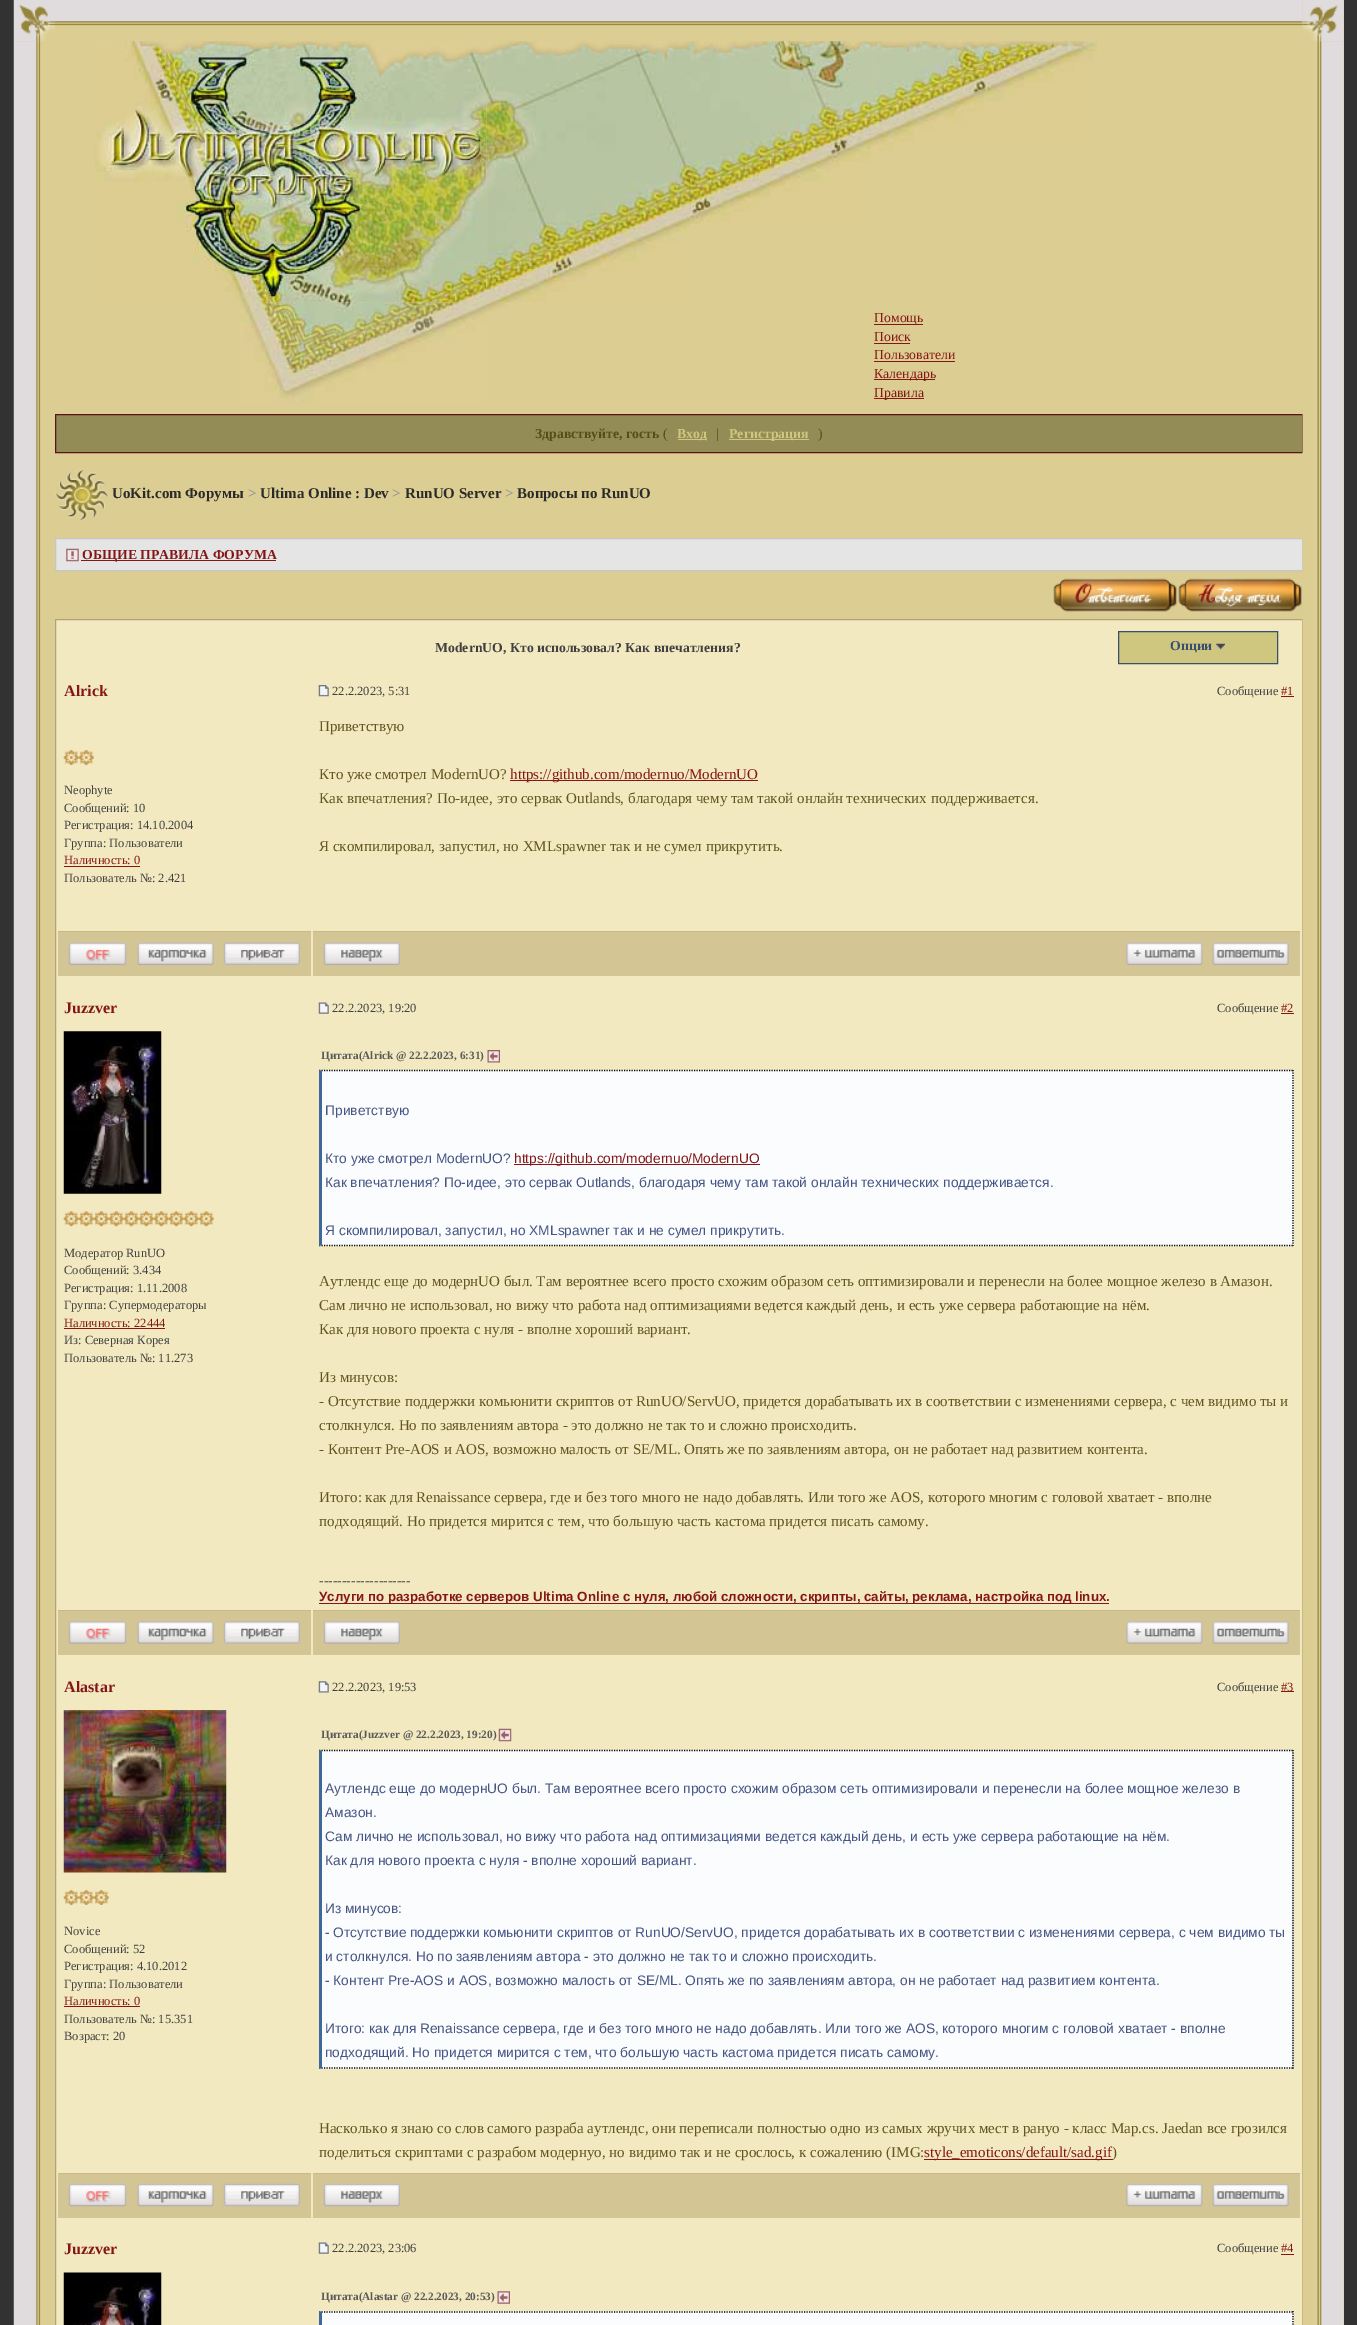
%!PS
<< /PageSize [1357 2325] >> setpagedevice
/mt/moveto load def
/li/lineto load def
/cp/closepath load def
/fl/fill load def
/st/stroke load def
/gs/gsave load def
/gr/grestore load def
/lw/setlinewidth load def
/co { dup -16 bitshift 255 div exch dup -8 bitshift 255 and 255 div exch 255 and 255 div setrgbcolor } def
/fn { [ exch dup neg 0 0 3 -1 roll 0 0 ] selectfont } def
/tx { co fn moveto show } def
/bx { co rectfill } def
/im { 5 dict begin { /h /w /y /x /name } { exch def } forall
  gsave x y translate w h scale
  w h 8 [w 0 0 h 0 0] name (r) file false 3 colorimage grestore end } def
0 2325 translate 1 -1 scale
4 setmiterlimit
0 0 1357 2325 16#323232 bx
14 41 41 2284 16#DCCE92 bx
(media/4.raw) 13 41 28 2284 im
(media/1.raw) 13 0 42 42 im
(media/2.raw) 55 0 1248 41 im
55 41 1248 578 16#DCCE92 bx
1303 41 41 2284 16#DCCE92 bx
16#938C57 co
55.5 414.5 mt 1302.5 414.5 li 1302.5 452.5 li 55.5 452.5 li cp gs fl gr
16#591515 co
st
16#E5E5E5 co
55.5 538.5 mt 1302.5 538.5 li 1302.5 570.5 li 55.5 570.5 li cp gs fl gr
16#C6C6C6 co
st
16#F2E9C0 co
55.5 619.5 mt 1302.5 619.5 li 1302.5 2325.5 li 55.5 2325.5 li cp gs fl gr
16#B2A279 co
st
(media/49.raw) 1302 41 42 2284 im
(media/3.raw) 1302 0 42 42 im
(media/5.raw) 95 41 391 262 im
(media/6.raw) 486 41 204 262 im
(media/7.raw) 690 41 184 183 im
(media/8.raw) 873 41 224 110 im
(media/9.raw) 240 302 247 100 im
486 303 1 8 16#DCCE92 bx
(media/10.raw) 486 302 21 10 im
874 324 49 1 16#851616 bx
874 343 36 1 16#851616 bx
874 361 81 1 16#851616 bx
874 379 61 1 16#851616 bx
874 398 50 1 16#851616 bx
678 439 28 1 16#CFC680 bx
729 439 80 1 16#CFC680 bx
(media/11.raw) 55 469 54 52 im
(media/12.raw) 66 548 13 14 im
81 560 195 1 16#851616 bx
(media/13.raw) 1053 577 124 36 im
(media/14.raw) 1178 577 124 36 im
16#CFC680 co
1118.5 631.5 mt 1277.5 631.5 li 1277.5 663.5 li 1118.5 663.5 li cp gs fl gr
16#3A4F6C co
st
(media/15.raw) 1216 643 9 7 im
(media/16.raw) 318 685 11 12 im
1281 696 13 1 16#851616 bx
(media/17.raw) 63 750 16 15 im
(media/18.raw) 78 750 16 15 im
64 866 76 1 16#851616 bx
510 780 248 1 16#851616 bx
58 932 253 44 16#D3C694 bx
58 931 253 1 16#C9B985 bx
(media/19.raw) 68 942 59 24 im
(media/20.raw) 137 942 77 24 im
(media/21.raw) 223 942 78 24 im
313 932 987 44 16#D3C694 bx
313 931 987 1 16#C9B985 bx
(media/22.raw) 323 942 78 24 im
(media/23.raw) 1126 942 77 24 im
(media/24.raw) 1212 942 77 24 im
(media/25.raw) 318 1002 11 12 im
1281 1013 13 1 16#851616 bx
(media/26.raw) 63 1031 99 163 im
(media/27.raw) 63 1211 16 16 im
(media/28.raw) 78 1211 16 16 im
(media/29.raw) 93 1211 16 16 im
(media/29.raw) 108 1211 16 16 im
(media/29.raw) 123 1211 16 16 im
(media/29.raw) 138 1211 16 16 im
(media/29.raw) 153 1211 16 16 im
(media/28.raw) 168 1211 16 16 im
(media/28.raw) 183 1211 16 16 im
(media/28.raw) 198 1211 16 16 im
64 1328 101 1 16#851616 bx
(media/30.raw) 487 1050 13 13 im
320 1070 974 176 16#FAFCFE bx
16#000000 co
1.2 lw
[1.25 1.25] 0 setdash
319 1070.5 mt 1294 1070.5 li st
1293 1070 mt 1293 1246 li st
319 1245.5 mt 1294 1245.5 li st
16#3D699A co
319 1246 mt 319 1070 li 322 1071 li 322 1245 li cp fl
514 1164 246 1 16#851616 bx
319 1603 790 1 16#851616 bx
58 1611 253 44 16#D3C694 bx
58 1610 253 1 16#C9B985 bx
(media/31.raw) 68 1621 59 23 im
(media/32.raw) 137 1621 77 23 im
(media/33.raw) 223 1621 78 23 im
313 1611 987 44 16#D3C694 bx
313 1610 987 1 16#C9B985 bx
(media/34.raw) 323 1621 78 23 im
(media/35.raw) 1126 1621 77 23 im
(media/36.raw) 1212 1621 77 23 im
(media/37.raw) 318 1681 11 12 im
1281 1691 13 1 16#851616 bx
(media/38.raw) 63 1710 164 163 im
(media/17.raw) 63 1890 16 15 im
(media/18.raw) 78 1890 16 15 im
(media/39.raw) 93 1890 16 15 im
64 2006 76 1 16#851616 bx
(media/40.raw) 498 1728 14 14 im
319 1750 975 319 16#FAFCFE bx
16#000000 co
319 1750.5 mt 1294 1750.5 li st
1293 1750 mt 1293 2069 li st
319 2068 mt 1294 2068 li st
16#3D699A co
319 2069 mt 319 1750 li 322 1751 li 322 2068 li cp fl
924 2159 189 1 16#851616 bx
58 2174 253 44 16#D3C694 bx
58 2173 253 1 16#C9B985 bx
(media/41.raw) 68 2183 59 24 im
(media/42.raw) 137 2183 77 24 im
(media/43.raw) 223 2183 78 24 im
313 2174 987 44 16#D3C694 bx
313 2173 987 1 16#C9B985 bx
(media/44.raw) 323 2183 78 24 im
(media/45.raw) 1126 2183 77 24 im
(media/46.raw) 1212 2183 77 24 im
(media/25.raw) 318 2242 11 12 im
1281 2254 13 1 16#851616 bx
(media/47.raw) 63 2272 99 53 im
(media/48.raw) 497 2291 13 13 im
319 2311 975 14 16#FAFCFE bx
16#000000 co
319 2312 mt 1294 2312 li st
1293 2311 mt 1293 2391 li st
16#3D699A co
319 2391 mt 319 2311 li 322 2312 li 322 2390 li cp fl
(Помощь) 874 322 /LiberationSerif-Regular 13.75 16#851616 tx
(Поиск) 874 341 /LiberationSerif-Regular 13.75 16#851616 tx
(Пользователи) 874 359 /LiberationSerif-Regular 13.75 16#851616 tx
(Календарь) 874 378 /LiberationSerif-Regular 13.75 16#851616 tx
(Правила) 874 397 /LiberationSerif-Regular 13.75 16#851616 tx
(Здравствуйте, гость) 535 438 /LiberationSerif-Bold 13.75 16#554E18 tx
(\() 663 438 /LiberationSerif-Regular 13.75 16#554E18 tx
(Вход) 677 438 /LiberationSerif-Bold 13.75 16#CFC680 tx
(|) 716 438 /LiberationSerif-Regular 13.75 16#554E18 tx
(Регистрация) 729 438 /LiberationSerif-Bold 13.75 16#CFC680 tx
(\)) 818 438 /LiberationSerif-Regular 13.75 16#554E18 tx
(UoKit.com Форумы) 112 498 /LiberationSerif-Bold 15 16#2A2A2A tx
(>) 248 498 /LiberationSerif-Bold 15 16#999999 tx
(Ultima Online : Dev) 260 498 /LiberationSerif-Bold 15 16#2A2A2A tx
(>) 392 498 /LiberationSerif-Bold 15 16#999999 tx
(RunUO Server) 405 498 /LiberationSerif-Bold 15 16#2A2A2A tx
(>) 505 498 /LiberationSerif-Bold 15 16#999999 tx
(Вопросы по RunUO) 517 498 /LiberationSerif-Bold 15 16#2A2A2A tx
(ОБЩИЕ ПРАВИЛА ФОРУМА) 82 559 /LiberationSerif-Bold 13.75 16#851616 tx
(ModernUO, Кто использовал? Как впечатления?) 435 652 /LiberationSerif-Bold 13.75 16#404040 tx
(Опции) 1170 650 /LiberationSerif-Bold 13.75 16#3A4F6C tx
(Alrick) 64 696 /LiberationSerif-Bold 16 16#851616 tx
(22.2.2023, 5:31) 332 695 /LiberationSerif-Regular 12.5 16#404040 tx
(Сообщение) 1217 695 /LiberationSerif-Regular 12.5 16#404040 tx
(#1) 1281 695 /LiberationSerif-Regular 12.5 16#851616 tx
(Neophyte) 64 794 /LiberationSerif-Regular 12.5 16#404040 tx
(Сообщений: 10) 64 812 /LiberationSerif-Regular 12.5 16#404040 tx
(Регистрация: 14.10.2004) 64 829 /LiberationSerif-Regular 12.5 16#404040 tx
(Группа: Пользователи) 64 847 /LiberationSerif-Regular 12.5 16#404040 tx
(Наличность: 0) 64 864 /LiberationSerif-Regular 12.5 16#851616 tx
(Пользователь №: 2.421) 64 882 /LiberationSerif-Regular 12.5 16#404040 tx
(Приветствую) 319 731 /LiberationSerif-Regular 15 16#625520 tx
(Кто уже смотрел ModernUO?) 319 779 /LiberationSerif-Regular 15 16#625520 tx
(https://github.com/modernuo/ModernUO) 510 779 /LiberationSerif-Regular 15 16#851616 tx
(Как впечатления? По-идее, это сервак Outlands, благодаря чему там такой онлайн технических поддерживается.) 319 803 /LiberationSerif-Regular 15 16#625520 tx
(Я скомпилировал, запустил, но XMLspawner так и не сумел прикрутить.) 319 851 /LiberationSerif-Regular 15 16#625520 tx
(Juzzver) 64 1013 /LiberationSerif-Bold 16 16#851616 tx
(22.2.2023, 19:20) 332 1012 /LiberationSerif-Regular 12.5 16#404040 tx
(Сообщение) 1217 1012 /LiberationSerif-Regular 12.5 16#404040 tx
(#2) 1281 1012 /LiberationSerif-Regular 12.5 16#851616 tx
(Модератор RunUO) 64 1257 /LiberationSerif-Regular 12.5 16#404040 tx
(Сообщений: 3.434) 64 1274 /LiberationSerif-Regular 12.5 16#404040 tx
(Регистрация: 1.11.2008) 64 1292 /LiberationSerif-Regular 12.5 16#404040 tx
(Группа: Супермодераторы) 64 1309 /LiberationSerif-Regular 12.5 16#404040 tx
(Наличность: 22444) 64 1327 /LiberationSerif-Regular 12.5 16#851616 tx
(Из: Северная Корея) 64 1344 /LiberationSerif-Regular 12.5 16#404040 tx
(Пользователь №: 11.273) 64 1362 /LiberationSerif-Regular 12.5 16#404040 tx
(Цитата\(Alrick @ 22.2.2023, 6:31\)) 321 1059 /LiberationSerif-Bold 11.25 16#5A5A5A tx
(Приветствую) 325 1115 /LiberationSans-Regular 13.75 16#465584 tx
(Кто уже смотрел ModernUO?) 325 1163 /LiberationSans-Regular 13.75 16#465584 tx
(https://github.com/modernuo/ModernUO) 514 1163 /LiberationSans-Regular 13.75 16#851616 tx
(Как впечатления? По-идее, это сервак Outlands, благодаря чему там такой онлайн технических поддерживается.) 325 1187 /LiberationSans-Regular 13.75 16#465584 tx
(Я скомпилировал, запустил, но XMLspawner так и не сумел прикрутить.) 325 1235 /LiberationSans-Regular 13.75 16#465584 tx
(Аутлендс еще до модернUO был. Там вероятнее всего просто схожим образом сеть оптимизировали и перенесли на более мощное железо в Амазон.) 319 1286 /LiberationSerif-Regular 15 16#625520 tx
(Сам лично не использовал, но вижу что работа над оптимизациями ведется каждый день, и есть уже сервера работающие на нём.) 319 1310 /LiberationSerif-Regular 15 16#625520 tx
(Как для нового проекта с нуля - вполне хороший вариант.) 319 1334 /LiberationSerif-Regular 15 16#625520 tx
(Из минусов:) 319 1382 /LiberationSerif-Regular 15 16#625520 tx
(- Отсутствие поддержки комьюнити скриптов от RunUO/ServUO, придется дорабатывать их в соответствии с изменениями сервера, с чем видимо ты и) 319 1406 /LiberationSerif-Regular 15 16#625520 tx
(столкнулся. Но по заявлениям автора - это должно не так то и сложно происходить.) 319 1430 /LiberationSerif-Regular 15 16#625520 tx
(- Контент Pre-AOS и AOS, возможно малость от SE/ML. Опять же по заявлениям автора, он не работает над развитием контента.) 319 1454 /LiberationSerif-Regular 15 16#625520 tx
(Итого: как для Renaissance сервера, где и без того много не надо добавлять. Или того же AOS, которого многим с головой хватает - вполне) 319 1502 /LiberationSerif-Regular 15 16#625520 tx
(подходящий. Но придется мирится с тем, что большую часть кастома придется писать самому.) 319 1526 /LiberationSerif-Regular 15 16#625520 tx
(--------------------) 319 1585 /LiberationSerif-Regular 13.75 16#404040 tx
(Услуги по разработке серверов Ultima Online с нуля, любой сложности, скрипты, сайты, реклама, настройка под linux.) 319 1601 /LiberationSans-Bold 13.33 16#851616 tx
(Alastar) 64 1692 /LiberationSerif-Bold 16 16#851616 tx
(22.2.2023, 19:53) 332 1691 /LiberationSerif-Regular 12.5 16#404040 tx
(Сообщение) 1217 1691 /LiberationSerif-Regular 12.5 16#404040 tx
(#3) 1281 1691 /LiberationSerif-Regular 12.5 16#851616 tx
(Novice) 64 1935 /LiberationSerif-Regular 12.5 16#404040 tx
(Сообщений: 52) 64 1953 /LiberationSerif-Regular 12.5 16#404040 tx
(Регистрация: 4.10.2012) 64 1970 /LiberationSerif-Regular 12.5 16#404040 tx
(Группа: Пользователи) 64 1988 /LiberationSerif-Regular 12.5 16#404040 tx
(Наличность: 0) 64 2005 /LiberationSerif-Regular 12.5 16#851616 tx
(Пользователь №: 15.351) 64 2023 /LiberationSerif-Regular 12.5 16#404040 tx
(Возраст: 20) 64 2040 /LiberationSerif-Regular 12.5 16#404040 tx
(Цитата\(Juzzver @ 22.2.2023, 19:20\)) 321 1738 /LiberationSerif-Bold 11.25 16#5A5A5A tx
(Аутлендс еще до модернUO был. Там вероятнее всего просто схожим образом сеть оптимизировали и перенесли на более мощное железо в) 325 1793 /LiberationSans-Regular 13.75 16#465584 tx
(Амазон.) 325 1817 /LiberationSans-Regular 13.75 16#465584 tx
(Сам лично не использовал, но вижу что работа над оптимизациями ведется каждый день, и есть уже сервера работающие на нём.) 325 1841 /LiberationSans-Regular 13.75 16#465584 tx
(Как для нового проекта с нуля - вполне хороший вариант.) 325 1865 /LiberationSans-Regular 13.75 16#465584 tx
(Из минусов:) 325 1913 /LiberationSans-Regular 13.75 16#465584 tx
(- Отсутствие поддержки комьюнити скриптов от RunUO/ServUO, придется дорабатывать их в соответствии с изменениями сервера, с чем видимо ты) 325 1937 /LiberationSans-Regular 13.75 16#465584 tx
(и столкнулся. Но по заявлениям автора - это должно не так то и сложно происходить.) 325 1961 /LiberationSans-Regular 13.75 16#465584 tx
(- Контент Pre-AOS и AOS, возможно малость от SE/ML. Опять же по заявлениям автора, он не работает над развитием контента.) 325 1985 /LiberationSans-Regular 13.75 16#465584 tx
(Итого: как для Renaissance сервера, где и без того много не надо добавлять. Или того же AOS, которого многим с головой хватает - вполне) 325 2033 /LiberationSans-Regular 13.75 16#465584 tx
(подходящий. Но придется мирится с тем, что большую часть кастома придется писать самому.) 325 2057 /LiberationSans-Regular 13.75 16#465584 tx
(Насколько я знаю со слов самого разраба аутлендс, они переписали полностью одно из самых жручих мест в рануо - класс Map.cs. Jaedan все грозился) 319 2133 /LiberationSerif-Regular 15 16#625520 tx
(поделиться скриптами с разрабом модернуо, но видимо так и не срослось, к сожалению \(IMG:) 319 2157 /LiberationSerif-Regular 15 16#625520 tx
(style_emoticons/default/sad.gif) 924 2157 /LiberationSerif-Regular 15 16#851616 tx
(\)) 1112 2157 /LiberationSerif-Regular 15 16#625520 tx
(Juzzver) 64 2254 /LiberationSerif-Bold 16 16#851616 tx
(22.2.2023, 23:06) 332 2252 /LiberationSerif-Regular 12.5 16#404040 tx
(Сообщение) 1217 2252 /LiberationSerif-Regular 12.5 16#404040 tx
(#4) 1281 2252 /LiberationSerif-Regular 12.5 16#851616 tx
(Цитата\(Alastar @ 22.2.2023, 20:53\)) 321 2300 /LiberationSerif-Bold 11.25 16#5A5A5A tx
showpage
